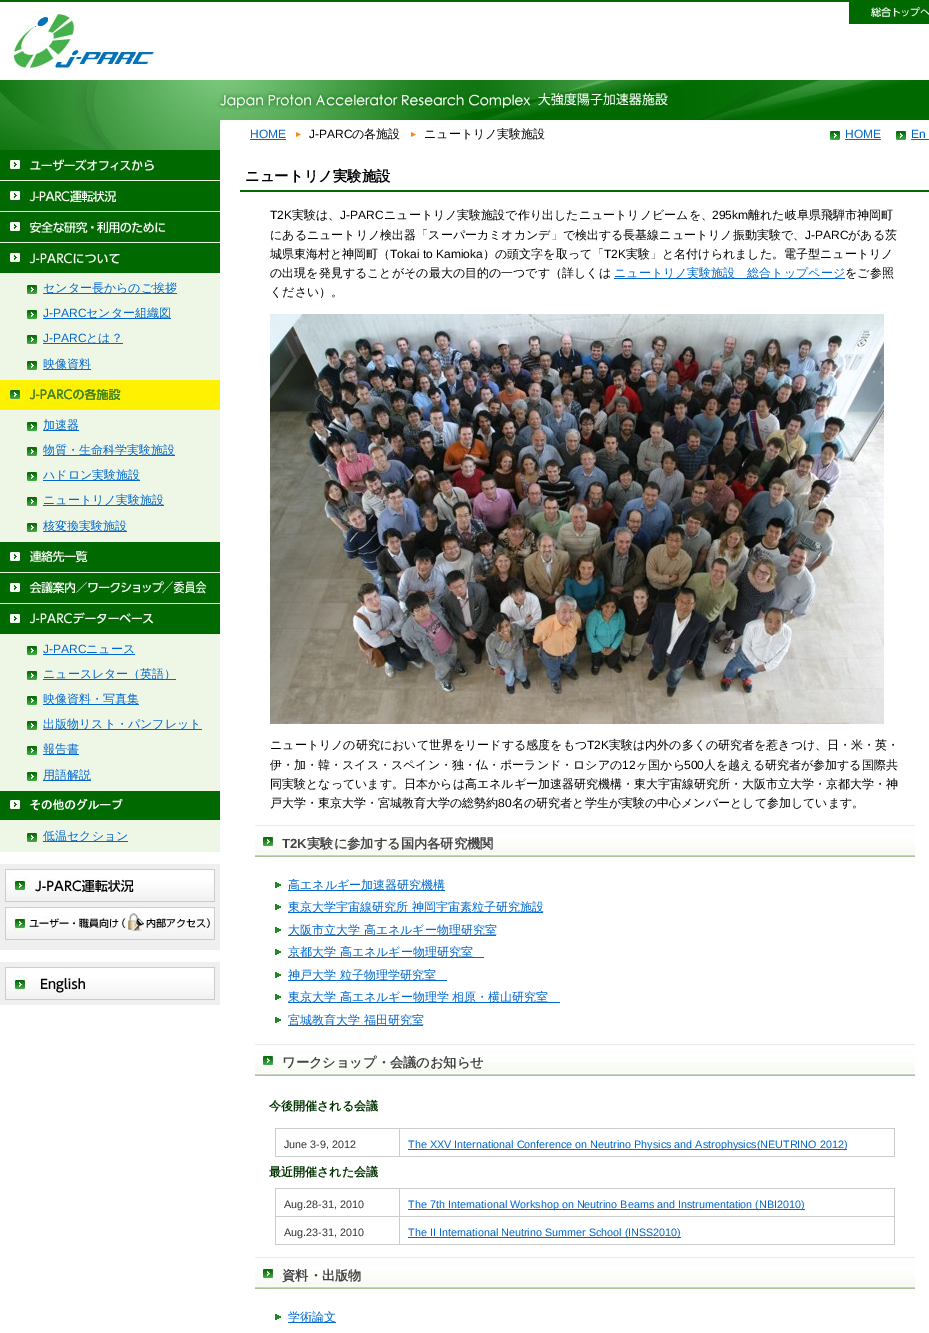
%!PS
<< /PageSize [929 1333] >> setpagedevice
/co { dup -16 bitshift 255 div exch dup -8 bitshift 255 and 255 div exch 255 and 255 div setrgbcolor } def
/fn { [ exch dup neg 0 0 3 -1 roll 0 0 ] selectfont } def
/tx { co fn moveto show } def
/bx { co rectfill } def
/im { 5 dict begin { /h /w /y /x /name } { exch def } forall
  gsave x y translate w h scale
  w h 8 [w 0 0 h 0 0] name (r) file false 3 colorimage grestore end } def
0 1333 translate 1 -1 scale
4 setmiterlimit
0 0 929 1333 16#FFFFFF bx
(media/1.raw) 0 0 929 2 im
(media/2.raw) 8 10 152 64 im
(media/3.raw) 849 2 80 22 im
(media/4.raw) 0 80 929 40 im
(media/5.raw) 0 120 220 30 im
(media/6.raw) 296 132 5 5 im
250 139 36 1 16#0268CD bx
(media/6.raw) 411 132 5 5 im
(media/7.raw) 830 131 10 9 im
845 139 36 1 16#0268CD bx
(media/7.raw) 896 131 10 9 im
911 139 18 1 16#0268CD bx
0 274 220 578 16#EEF7E6 bx
(media/8.raw) 0 150 220 31 im
(media/9.raw) 0 181 220 31 im
(media/10.raw) 0 212 220 31 im
(media/11.raw) 0 243 220 31 im
(media/7.raw) 27 285 10 9 im
43 293 134 1 16#0268CD bx
(media/7.raw) 27 310 10 9 im
43 318 128 1 16#0268CD bx
(media/7.raw) 27 335 10 9 im
43 343 80 1 16#0268CD bx
(media/7.raw) 27 361 10 9 im
43 369 48 1 16#0268CD bx
(media/12.raw) 0 380 220 30 im
(media/7.raw) 27 422 10 9 im
43 430 36 1 16#0268CD bx
(media/7.raw) 27 447 10 9 im
43 455 132 1 16#0268CD bx
(media/7.raw) 27 472 10 9 im
43 480 97 1 16#0268CD bx
(media/7.raw) 27 497 10 9 im
43 505 121 1 16#0268CD bx
(media/7.raw) 27 523 10 9 im
43 531 84 1 16#0268CD bx
(media/13.raw) 0 542 220 31 im
(media/14.raw) 0 573 220 31 im
(media/15.raw) 0 604 220 31 im
(media/7.raw) 27 646 10 9 im
43 654 92 1 16#0268CD bx
(media/7.raw) 27 671 10 9 im
43 679 133 1 16#0268CD bx
(media/7.raw) 27 696 10 9 im
43 704 96 1 16#0268CD bx
(media/7.raw) 27 721 10 9 im
43 729 159 1 16#0268CD bx
(media/7.raw) 27 746 10 9 im
43 754 36 1 16#0268CD bx
(media/7.raw) 27 772 10 9 im
43 780 48 1 16#0268CD bx
(media/16.raw) 0 791 220 30 im
(media/7.raw) 27 833 10 9 im
43 841 85 1 16#0268CD bx
0 864 220 86 16#EFEFEF bx
(media/17.raw) 5 869 210 33 im
(media/18.raw) 5 907 210 33 im
0 962 220 43 16#EFEFEF bx
(media/19.raw) 5 967 210 33 im
240 190 689 2 16#006900 bx
614 278 231 1 16#0268CD bx
(media/20.raw) 270 314 614 410 im
(media/21.raw) 255 825 660 32 im
(media/22.raw) 275 882 6 6 im
288 890 157 1 16#0268CD bx
(media/22.raw) 275 904 6 6 im
288 912 255 1 16#0268CD bx
(media/22.raw) 275 927 6 6 im
288 935 208 1 16#0268CD bx
(media/22.raw) 275 949 6 6 im
288 957 196 1 16#0268CD bx
(media/22.raw) 275 972 6 6 im
288 980 159 1 16#0268CD bx
(media/22.raw) 275 994 6 6 im
288 1002 272 1 16#0268CD bx
(media/22.raw) 275 1017 6 6 im
288 1025 135 1 16#0268CD bx
(media/21.raw) 255 1044 660 32 im
275 1156 620 1 16#CCCCCC bx
399 1128 496 1 16#CCCCCC bx
399 1128 1 29 16#CCCCCC bx
275 1128 125 1 16#CCCCCC bx
275 1128 1 29 16#CCCCCC bx
894 1128 1 29 16#CCCCCC bx
408 1149 439 1 16#0268CD bx
275 1216 620 1 16#CCCCCC bx
399 1188 496 1 16#CCCCCC bx
275 1244 620 1 16#CCCCCC bx
399 1216 1 29 16#CCCCCC bx
399 1188 1 29 16#CCCCCC bx
275 1188 125 1 16#CCCCCC bx
275 1216 1 29 16#CCCCCC bx
275 1188 1 29 16#CCCCCC bx
894 1216 1 29 16#CCCCCC bx
894 1188 1 29 16#CCCCCC bx
408 1209 397 1 16#0268CD bx
408 1237 273 1 16#0268CD bx
(media/21.raw) 255 1257 660 32 im
(media/22.raw) 275 1314 6 6 im
288 1322 48 1 16#0268CD bx
(HOME) 250 138 /LiberationSans-Regular 12 16#0268CD tx
(J-PARC) 309 138 /LiberationSans-Regular 12 16#000000 tx
(の各施設) 352 138 /WenQuanYiZenHei-Medium 12 16#000000 tx
(ニュートリノ実験施設) 424 138 /WenQuanYiZenHei-Medium 12 16#000000 tx
(HOME) 845 138 /LiberationSans-Regular 12 16#0268CD tx
(En) 911 138 /LiberationSans-Regular 12 16#0268CD tx
(センター長からのご挨拶) 43 292 /WenQuanYiZenHei-Medium 12 16#0268CD tx
(J-PARC) 43 317 /LiberationSans-Regular 12 16#0268CD tx
(センター組織図) 86 317 /WenQuanYiZenHei-Medium 12 16#0268CD tx
(J-PARC) 43 342 /LiberationSans-Regular 12 16#0268CD tx
(とは？) 86 342 /WenQuanYiZenHei-Medium 12 16#0268CD tx
(映像資料) 43 368 /WenQuanYiZenHei-Medium 12 16#0268CD tx
(加速器) 43 429 /WenQuanYiZenHei-Medium 12 16#0268CD tx
(物質・生命科学実験施設) 43 454 /WenQuanYiZenHei-Medium 12 16#0268CD tx
(ハドロン実験施設) 43 479 /WenQuanYiZenHei-Medium 12 16#0268CD tx
(ニュートリノ実験施設) 43 504 /WenQuanYiZenHei-Medium 12 16#0268CD tx
(核変換実験施設) 43 530 /WenQuanYiZenHei-Medium 12 16#0268CD tx
(J-PARC) 43 653 /LiberationSans-Regular 12 16#0268CD tx
(ニュース) 86 653 /WenQuanYiZenHei-Medium 12 16#0268CD tx
(ニュースレター（英語）) 43 678 /WenQuanYiZenHei-Medium 12 16#0268CD tx
(映像資料・写真集) 43 703 /WenQuanYiZenHei-Medium 12 16#0268CD tx
(出版物リスト・パンフレット) 43 728 /WenQuanYiZenHei-Medium 12 16#0268CD tx
(報告書) 43 753 /WenQuanYiZenHei-Medium 12 16#0268CD tx
(用語解説) 43 779 /WenQuanYiZenHei-Medium 12 16#0268CD tx
(低温セクション) 43 840 /WenQuanYiZenHei-Medium 12 16#0268CD tx
(ニュートリノ実験施設) 245 181 /WenQuanYiZenHei-Bold 14.4 16#000000 tx
(T2K) 270 219 /LiberationSans-Regular 12 16#000000 tx
(実験は、) 292 219 /WenQuanYiZenHei-Medium 12 16#000000 tx
(J-PARC) 340 219 /LiberationSans-Regular 12 16#000000 tx
(ニュートリノ実験施設で作り出したニュートリノビームを、) 384 219 /WenQuanYiZenHei-Medium 12 16#000000 tx
(295km) 712 219 /LiberationSans-Regular 12 16#000000 tx
(離れた岐阜県飛騨市神岡町) 748 219 /WenQuanYiZenHei-Medium 12 16#000000 tx
(にあるニュートリノ検出器「スーパーカミオカンデ」で検出する長基線ニュートリノ振動実験で、) 270 239 /WenQuanYiZenHei-Medium 12 16#000000 tx
(J-PARC) 805 239 /LiberationSans-Regular 12 16#000000 tx
(がある茨) 848 239 /WenQuanYiZenHei-Medium 12 16#000000 tx
(城県東海村と神岡町（) 270 258 /WenQuanYiZenHei-Medium 12 16#000000 tx
(Tokai to Kamioka) 390 258 /LiberationSans-Regular 12 16#000000 tx
(）の頭文字を取って「) 483 258 /WenQuanYiZenHei-Medium 12 16#000000 tx
(T2K) 604 258 /LiberationSans-Regular 12 16#000000 tx
(実験」と名付けられました。電子型ニュートリノ) 626 258 /WenQuanYiZenHei-Medium 12 16#000000 tx
(の出現を発見することがその最大の目的の一つです（詳しくは) 270 277 /WenQuanYiZenHei-Medium 12 16#000000 tx
(ニュートリノ実験施設　総合トップページ) 614 277 /WenQuanYiZenHei-Medium 12 16#0268CD tx
(をご参照) 845 277 /WenQuanYiZenHei-Medium 12 16#000000 tx
(ください）。) 270 296 /WenQuanYiZenHei-Medium 12 16#000000 tx
(ニュートリノの研究において世界をリードする感度をもつ) 270 749 /WenQuanYiZenHei-Medium 12 16#000000 tx
(T2K) 587 749 /LiberationSans-Regular 12 16#000000 tx
(実験は内外の多くの研究者を惹きつけ、日・米・英・) 609 749 /WenQuanYiZenHei-Medium 12 16#000000 tx
(伊・加・韓・スイス・スペイン・独・仏・ポーランド・ロシアの) 270 769 /WenQuanYiZenHei-Medium 12 16#000000 tx
(12) 622 769 /LiberationSans-Regular 12 16#000000 tx
(ヶ国から) 636 769 /WenQuanYiZenHei-Medium 12 16#000000 tx
(500) 684 769 /LiberationSans-Regular 12 16#000000 tx
(人を越える研究者が参加する国際共) 704 769 /WenQuanYiZenHei-Medium 12 16#000000 tx
(同実験となっています。日本からは高エネルギー加速器研究機構・東大宇宙線研究所・大阪市立大学・京都大学・神) 270 788 /WenQuanYiZenHei-Medium 12 16#000000 tx
(戸大学・東京大学・宮城教育大学の総勢約) 270 807 /WenQuanYiZenHei-Medium 12 16#000000 tx
(80) 498 807 /LiberationSans-Regular 12 16#000000 tx
(名の研究者と学生が実験の中心メンバーとして参加しています。) 512 807 /WenQuanYiZenHei-Medium 12 16#000000 tx
(T2K) 282 848 /LiberationSans-Bold 13.25 16#444444 tx
(実験に参加する国内各研究機関) 307 848 /WenQuanYiZenHei-Bold 13.25 16#444444 tx
(高エネルギー加速器研究機構) 288 889 /WenQuanYiZenHei-Medium 12 16#0268CD tx
(東京大学宇宙線研究所 神岡宇宙素粒子研究施設) 288 911 /WenQuanYiZenHei-Medium 12 16#0268CD tx
(大阪市立大学 高エネルギー物理研究室) 288 934 /WenQuanYiZenHei-Medium 12 16#0268CD tx
(京都大学 高エネルギー物理研究室) 288 956 /WenQuanYiZenHei-Medium 12 16#0268CD tx
(神戸大学 粒子物理学研究室) 288 979 /WenQuanYiZenHei-Medium 12 16#0268CD tx
(東京大学 高エネルギー物理学 相原・横山研究室) 288 1001 /WenQuanYiZenHei-Medium 12 16#0268CD tx
(宮城教育大学 福田研究室) 288 1024 /WenQuanYiZenHei-Medium 12 16#0268CD tx
(ワークショップ・会議のお知らせ) 282 1067 /WenQuanYiZenHei-Bold 13.25 16#444444 tx
(今後開催される会議) 269 1110 /WenQuanYiZenHei-Bold 12 16#003300 tx
(June 3-9, 2012) 284 1148 /LiberationSans-Regular 10.8 16#333333 tx
(The XXV International Conference on Neutrino Physics and Astrophysics\(NEUTRINO 2012\)) 408 1148 /LiberationSans-Regular 10.8 16#0268CD tx
(最近開催された会議) 269 1176 /WenQuanYiZenHei-Bold 12 16#003300 tx
(Aug.28-31, 2010) 284 1208 /LiberationSans-Regular 10.8 16#333333 tx
(The 7th International Workshop on Neutrino Beams and Instrumentation \(NBI2010\)) 408 1208 /LiberationSans-Regular 10.8 16#0268CD tx
(Aug.23-31, 2010) 284 1236 /LiberationSans-Regular 10.8 16#333333 tx
(The II International Neutrino Summer School \(INSS2010\)) 408 1236 /LiberationSans-Regular 10.8 16#0268CD tx
(資料・出版物) 282 1280 /WenQuanYiZenHei-Bold 13.25 16#444444 tx
(学術論文) 288 1321 /WenQuanYiZenHei-Medium 12 16#0268CD tx
showpage
